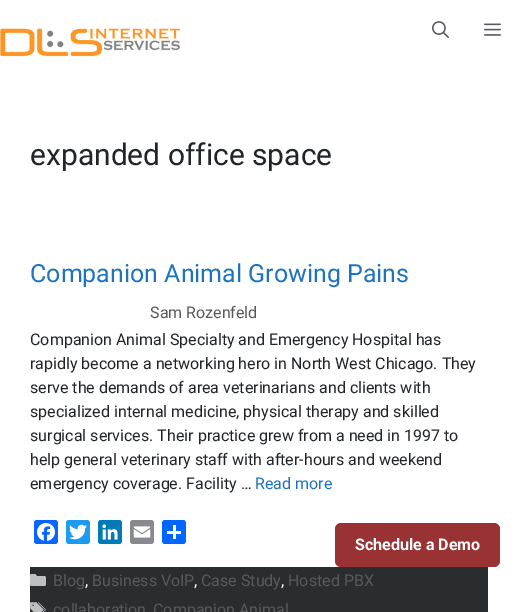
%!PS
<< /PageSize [518 612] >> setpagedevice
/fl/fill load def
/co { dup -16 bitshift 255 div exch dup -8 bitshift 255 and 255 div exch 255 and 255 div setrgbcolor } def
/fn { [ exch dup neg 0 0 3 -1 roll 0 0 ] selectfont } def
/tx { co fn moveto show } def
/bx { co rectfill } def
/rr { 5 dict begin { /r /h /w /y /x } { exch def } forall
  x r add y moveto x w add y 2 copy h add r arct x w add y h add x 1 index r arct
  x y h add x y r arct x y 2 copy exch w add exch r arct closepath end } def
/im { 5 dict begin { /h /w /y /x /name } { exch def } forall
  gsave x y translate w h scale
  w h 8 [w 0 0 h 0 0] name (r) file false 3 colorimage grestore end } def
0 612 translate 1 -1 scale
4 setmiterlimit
0 0 518 612 16#FFFFFF bx
16#0866FF co
34 520 24 24 3 rr fl
(media/1.raw) 37 523 18 18 im
16#1D9BF0 co
66 520 24 24 3 rr fl
(media/2.raw) 69 524 18 16 im
16#007BB5 co
98 520 24 24 3 rr fl
(media/3.raw) 102 524 16 16 im
16#888990 co
130 520 24 24 3 rr fl
(media/4.raw) 133 526 18 12 im
16#0166FF co
162 520 24 24 3 rr fl
173 525 3 14 16#FFFFFF bx
167 531 14 3 16#FFFFFF bx
30 567 458 45 16#2A2D30 bx
(media/5.raw) 30 574 16 12 im
(media/6.raw) 30 602 16 10 im
(media/7.raw) 0 28 180 29 im
(media/8.raw) 432 21 17 18 im
(media/9.raw) 484 23 17 13 im
16#993333 co
335 523 165 44 6 rr fl
(expanded office space) 30 165 /Roboto-Regular 30 16#212529 tx
(Companion Animal Growing Pains) 30 282 /Roboto-Regular 25 16#1E73BE tx
(Sam Rozenfeld) 150 318 /Roboto-Regular 16 16#595959 tx
(Companion Animal Specialty and Emergency Hospital has) 30 345 /Roboto-Regular 16 16#212529 tx
(rapidly become a networking hero in North West Chicago. They) 30 369 /Roboto-Regular 16 16#212529 tx
(serve the demands of area veterinarians and clients with) 30 393 /Roboto-Regular 16 16#212529 tx
(specialized internal medicine, physical therapy and skilled) 30 417 /Roboto-Regular 16 16#212529 tx
(surgical services. Their practice grew from a need in 1997 to) 30 441 /Roboto-Regular 16 16#212529 tx
(help general veterinary staff with after-hours and weekend) 30 465 /Roboto-Regular 16 16#212529 tx
(emergency coverage. Facility …) 30 489 /Roboto-Regular 16 16#212529 tx
(Read more) 255 489 /Roboto-Regular 16 16#1E73BE tx
(Blog) 53 586 /Roboto-Regular 16 16#595959 tx
(,) 85 586 /Roboto-Regular 16 16#FFFFFF tx
(Business VoIP) 92 586 /Roboto-Regular 16 16#595959 tx
(,) 194 586 /Roboto-Regular 16 16#FFFFFF tx
(Case Study) 201 586 /Roboto-Regular 16 16#595959 tx
(,) 281 586 /Roboto-Regular 16 16#FFFFFF tx
(Hosted PBX) 288 586 /Roboto-Regular 16 16#595959 tx
(collaboration) 53 615 /Roboto-Regular 16 16#595959 tx
(Companion Animal) 153 615 /Roboto-Regular 16 16#595959 tx
(Schedule a Demo) 355 550 /Roboto-Bold 16 16#FFFFFF tx
showpage
